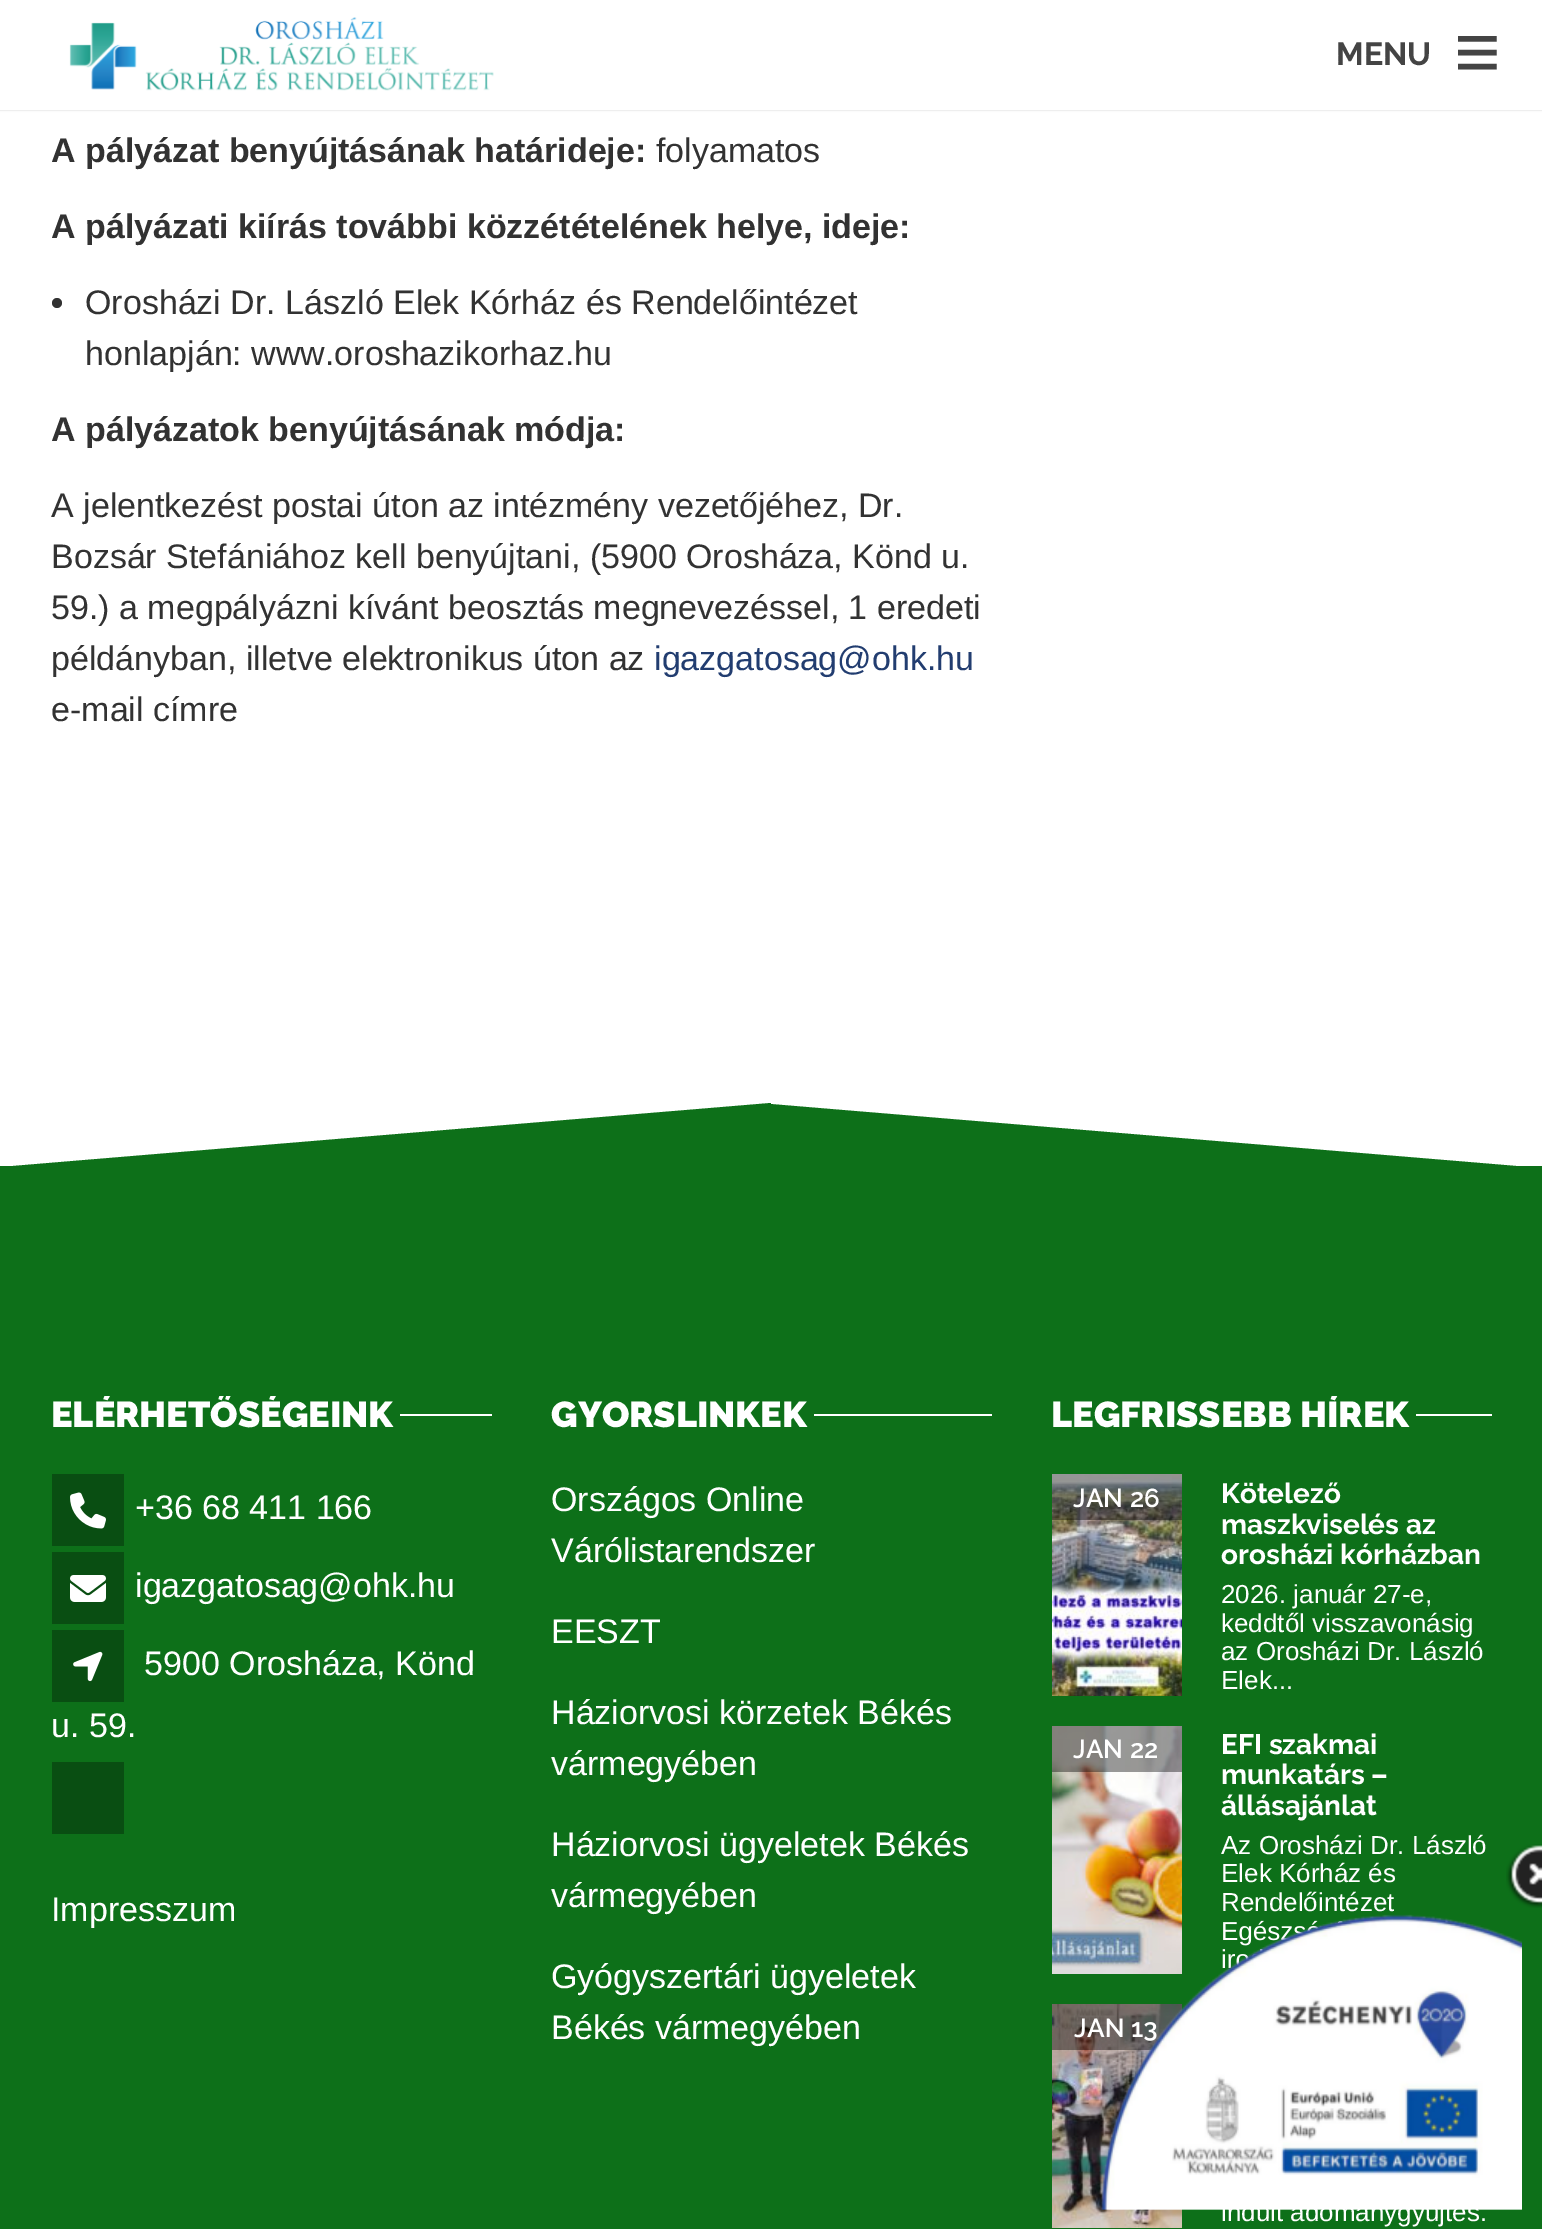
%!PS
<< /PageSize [1542 2229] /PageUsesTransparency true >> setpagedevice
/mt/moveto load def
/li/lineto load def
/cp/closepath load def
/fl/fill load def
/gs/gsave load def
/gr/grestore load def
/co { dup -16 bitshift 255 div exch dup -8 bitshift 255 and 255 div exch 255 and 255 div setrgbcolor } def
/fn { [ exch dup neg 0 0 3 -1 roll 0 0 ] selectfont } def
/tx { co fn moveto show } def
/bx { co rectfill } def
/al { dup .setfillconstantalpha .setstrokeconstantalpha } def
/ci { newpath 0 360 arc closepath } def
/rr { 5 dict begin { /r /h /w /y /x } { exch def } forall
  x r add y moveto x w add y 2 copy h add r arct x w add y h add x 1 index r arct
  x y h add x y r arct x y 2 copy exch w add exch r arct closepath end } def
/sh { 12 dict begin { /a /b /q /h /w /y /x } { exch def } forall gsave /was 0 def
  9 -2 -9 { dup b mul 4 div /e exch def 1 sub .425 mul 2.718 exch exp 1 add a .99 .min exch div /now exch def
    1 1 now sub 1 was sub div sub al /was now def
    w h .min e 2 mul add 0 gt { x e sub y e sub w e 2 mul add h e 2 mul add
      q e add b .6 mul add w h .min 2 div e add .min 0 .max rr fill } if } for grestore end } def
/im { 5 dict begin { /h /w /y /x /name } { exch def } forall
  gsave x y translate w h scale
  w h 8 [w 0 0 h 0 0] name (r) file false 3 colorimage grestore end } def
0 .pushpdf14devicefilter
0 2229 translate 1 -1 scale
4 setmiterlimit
0 0 1542 2229 16#FFFFFF bx
16#000000 co
0 0 1542 110 0 1 .2 sh
0 0 1542 110 16#FFFFFF bx
(media/1.raw) 69 17 425 74 im
16#323232 co
57 303 5 ci fl
0 1166 1542 1063 16#0D7019 bx
770 1168 mt 770 1104 li 1540 1168 li cp fl
771 1167 mt 771 1103 li 1 1167 li cp fl
400 1414 92 2 16#FFFFFF bx
52 1474 72 72 16#094E12 bx
(media/2.raw) 70 1492 36 37 im
52 1552 72 72 16#094E12 bx
(media/3.raw) 70 1575 36 27 im
52 1630 72 72 16#094E12 bx
(media/4.raw) 73 1651 30 31 im
52 1762 72 72 16#094E12 bx
814 1414 178 2 16#FFFFFF bx
1416 1414 76 2 16#FFFFFF bx
(media/5.raw) 1052 1474 130 222 im
0.4 al
1052 1474 130 46 16#000000 bx
1 al
(media/6.raw) 1052 1726 130 248 im
0.4 al
1052 1726 130 46 16#000000 bx
1 al
(media/7.raw) 1052 2004 130 224 im
0.4 al
1052 2004 130 46 16#000000 bx
1 al
(media/8.raw) 1506 1844 36 64 im
(MENU) 1336 65 /Raleway-Bold 32 16#444444 tx
(≡) 1454 79 /LiberationSans-Bold 80 16#444444 tx
(A pályázat benyújtásának határideje:) 51 162 /LiberationSans-Bold 34 16#323232 tx
(folyamatos) 656 162 /LiberationSans-Regular 34 16#323232 tx
(A pályázati kiírás további közzétételének helye, ideje:) 51 238 /LiberationSans-Bold 34 16#323232 tx
(Orosházi Dr. László Elek Kórház és Rendelőintézet) 85 314 /LiberationSans-Regular 34 16#323232 tx
(honlapján: www.oroshazikorhaz.hu) 85 365 /LiberationSans-Regular 34 16#323232 tx
(A pályázatok benyújtásának módja:) 51 441 /LiberationSans-Bold 34 16#323232 tx
(A jelentkezést postai úton az intézmény vezetőjéhez, Dr.) 51 517 /LiberationSans-Regular 34 16#323232 tx
(Bozsár Stefániához kell benyújtani, \(5900 Orosháza, Könd u.) 51 568 /LiberationSans-Regular 34 16#323232 tx
(59.\) a megpályázni kívánt beosztás megnevezéssel, 1 eredeti) 51 619 /LiberationSans-Regular 34 16#323232 tx
(példányban, illetve elektronikus úton az) 51 670 /LiberationSans-Regular 34 16#323232 tx
(igazgatosag@ohk.hu) 654 670 /LiberationSans-Regular 34 16#223D70 tx
(e-mail címre) 51 721 /LiberationSans-Regular 34 16#323232 tx
gs
52 1396 440 38 rectclip
(ELÉRHETŐSÉGEINK) 51 1427 /Raleway-Black 36 16#FFFFFF tx
gr
(+36 68 411 166) 135 1519 /LiberationSans-Regular 34 16#FFFFFF tx
(igazgatosag@ohk.hu) 135 1597 /LiberationSans-Regular 34 16#FFFFFF tx
(5900 Orosháza, Könd) 144 1675 /LiberationSans-Regular 34 16#FFFFFF tx
(u. 59.) 51 1737 /LiberationSans-Regular 34 16#FFFFFF tx
(Impresszum) 51 1921 /LiberationSans-Regular 34 16#FFFFFF tx
(GYORSLINKEK) 551 1427 /Raleway-Black 36 16#FFFFFF tx
(Országos Online) 551 1511 /LiberationSans-Regular 34 16#FFFFFF tx
(Várólistarendszer) 551 1562 /LiberationSans-Regular 34 16#FFFFFF tx
(EESZT) 551 1643 /LiberationSans-Regular 34 16#FFFFFF tx
(Háziorvosi körzetek Békés) 551 1724 /LiberationSans-Regular 34 16#FFFFFF tx
(vármegyében) 551 1775 /LiberationSans-Regular 34 16#FFFFFF tx
(Háziorvosi ügyeletek Békés) 551 1856 /LiberationSans-Regular 34 16#FFFFFF tx
(vármegyében) 551 1907 /LiberationSans-Regular 34 16#FFFFFF tx
(Gyógyszertári ügyeletek) 551 1988 /LiberationSans-Regular 34 16#FFFFFF tx
(Békés vármegyében) 551 2039 /LiberationSans-Regular 34 16#FFFFFF tx
gs
1052 1396 440 38 rectclip
(LEGFRISSEBB HÍREK) 1051 1427 /Raleway-Black 36 16#FFFFFF tx
gr
(JAN 26) 1073 1507 /Raleway-SemiBold 26 16#FFFFFF tx
(Kötelező) 1221 1503 /Raleway-Bold 28 16#FFFFFF tx
(maszkviselés az) 1221 1534 /Raleway-Bold 28 16#FFFFFF tx
(orosházi kórházban) 1221 1564 /Raleway-Bold 28 16#FFFFFF tx
(2026. január 27-e,) 1221 1603 /LiberationSans-Regular 26 16#FFFFFF tx
(keddtől visszavonásig) 1221 1632 /LiberationSans-Regular 26 16#FFFFFF tx
(az Orosházi Dr. László) 1221 1660 /LiberationSans-Regular 26 16#FFFFFF tx
(Elek...) 1221 1689 /LiberationSans-Regular 26 16#FFFFFF tx
(JAN 22) 1073 1758 /Raleway-SemiBold 26 16#FFFFFF tx
(EFI szakmai) 1221 1754 /Raleway-Bold 28 16#FFFFFF tx
(munkatárs –) 1221 1784 /Raleway-Bold 28 16#FFFFFF tx
(állásajánlat) 1221 1815 /Raleway-Bold 28 16#FFFFFF tx
(Az Orosházi Dr. László) 1221 1854 /LiberationSans-Regular 26 16#FFFFFF tx
(Elek Kórház és) 1221 1882 /LiberationSans-Regular 26 16#FFFFFF tx
(Rendelőintézet) 1221 1911 /LiberationSans-Regular 26 16#FFFFFF tx
(Egés) 1221 1940 /LiberationSans-Regular 26 16#FFFFFF tx
(ir) 1221 1968 /LiberationSans-Regular 26 16#FFFFFF tx
(JAN 13) 1074 2037 /Raleway-SemiBold 26 16#FFFFFF tx
(indult adománygyűjtés.) 1221 2221 /LiberationSans-Regular 26 16#FFFFFF tx
(media/9.raw) 1101 1914 421 296 im
.poppdf14devicefilter showpage
